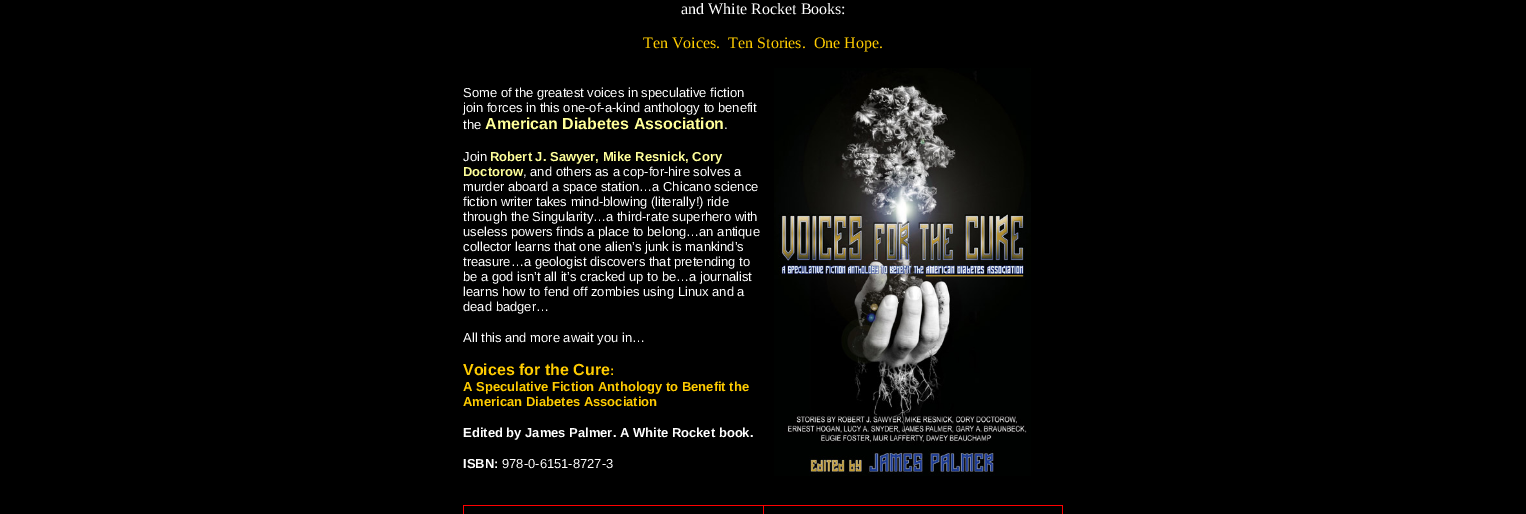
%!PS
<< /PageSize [1526 514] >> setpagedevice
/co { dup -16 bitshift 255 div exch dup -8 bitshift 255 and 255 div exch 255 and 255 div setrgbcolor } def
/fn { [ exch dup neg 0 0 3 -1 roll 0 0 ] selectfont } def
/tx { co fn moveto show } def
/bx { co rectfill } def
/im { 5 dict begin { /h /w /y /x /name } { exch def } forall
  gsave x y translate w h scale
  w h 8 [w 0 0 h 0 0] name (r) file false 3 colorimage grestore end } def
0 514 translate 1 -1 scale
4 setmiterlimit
0 0 1526 514 16#000000 bx
(media/1.raw) 774 68 257 408 im
463 505 600 1 16#FF0000 bx
1062 505 1 9 16#FF0000 bx
463 505 1 9 16#FF0000 bx
763 505 1 9 16#FF0000 bx
(and White Rocket Books:) 681 14 /LiberationSerif-Regular 16 16#FFFFFF tx
(Ten Voices.  Ten Stories.  One Hope.) 643 48 /LiberationSerif-Regular 16 16#FFCC00 tx
(Some of the greatest voices in speculative fiction) 463 97 /LiberationSans-Regular 13 16#FFFFFF tx
(join forces in this one-of-a-kind anthology to benefit) 463 112 /LiberationSans-Regular 13 16#FFFFFF tx
(the) 463 129 /LiberationSans-Regular 13 16#FFFFFF tx
(American Diabetes Association) 485 129 /LiberationSans-Bold 16 16#FFFF99 tx
(.) 724 129 /LiberationSans-Regular 13 16#FFFFFF tx
(Join) 463 161 /LiberationSans-Regular 13 16#FFFFFF tx
(Robert J. Sawyer, Mike Resnick, Cory) 490 161 /LiberationSans-Bold 13 16#FFFF99 tx
(Doctorow) 463 176 /LiberationSans-Bold 13 16#FFFF99 tx
(, and others as a cop-for-hire solves a) 523 176 /LiberationSans-Regular 13 16#FFFFFF tx
(murder aboard a space station…a Chicano science) 463 191 /LiberationSans-Regular 13 16#FFFFFF tx
(fiction writer takes mind-blowing \(literally!\) ride) 463 206 /LiberationSans-Regular 13 16#FFFFFF tx
(through the Singularity…a third-rate superhero with) 463 221 /LiberationSans-Regular 13 16#FFFFFF tx
(useless powers finds a place to belong…an antique) 463 236 /LiberationSans-Regular 13 16#FFFFFF tx
(collector learns that one alien’s junk is mankind’s) 463 251 /LiberationSans-Regular 13 16#FFFFFF tx
(treasure…a geologist discovers that pretending to) 463 266 /LiberationSans-Regular 13 16#FFFFFF tx
(be a god isn’t all it’s cracked up to be…a journalist) 463 281 /LiberationSans-Regular 13 16#FFFFFF tx
(learns how to fend off zombies using Linux and a) 463 296 /LiberationSans-Regular 13 16#FFFFFF tx
(dead badger…) 463 311 /LiberationSans-Regular 13 16#FFFFFF tx
(All this and more await you in…) 463 342 /LiberationSans-Regular 13 16#FFFFFF tx
(Voices for the Cure) 463 375 /LiberationSans-Bold 16 16#FFCC00 tx
(:) 610 375 /LiberationSans-Bold 13 16#FFCC00 tx
(A Speculative Fiction Anthology to Benefit the) 463 391 /LiberationSans-Bold 13 16#FFCC00 tx
(American Diabetes Association) 463 406 /LiberationSans-Bold 13 16#FFCC00 tx
(Edited by James Palmer. A White Rocket book.) 463 437 /LiberationSans-Bold 13 16#FFFFFF tx
(ISBN:) 463 468 /LiberationSans-Bold 13 16#FFFFFF tx
(978-0-6151-8727-3) 502 468 /LiberationSans-Regular 13 16#FFFFFF tx
showpage
